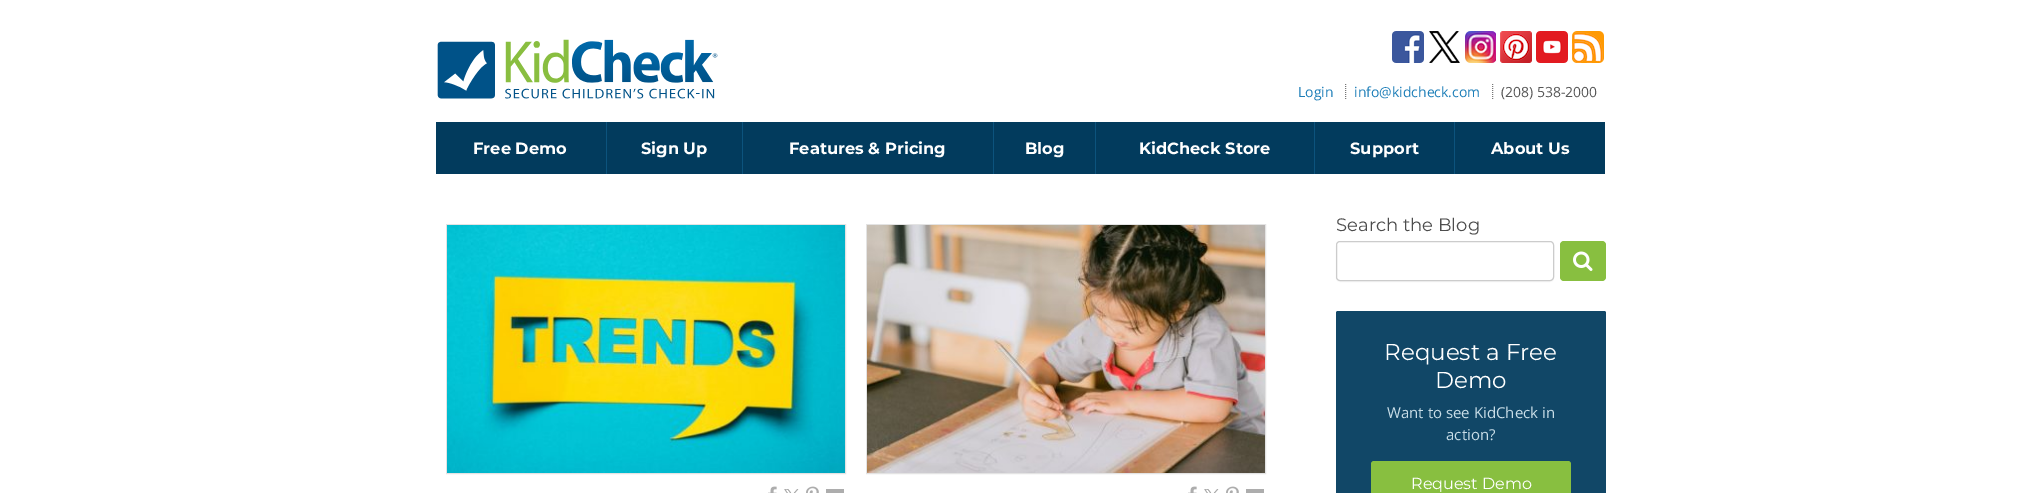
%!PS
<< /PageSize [2041 493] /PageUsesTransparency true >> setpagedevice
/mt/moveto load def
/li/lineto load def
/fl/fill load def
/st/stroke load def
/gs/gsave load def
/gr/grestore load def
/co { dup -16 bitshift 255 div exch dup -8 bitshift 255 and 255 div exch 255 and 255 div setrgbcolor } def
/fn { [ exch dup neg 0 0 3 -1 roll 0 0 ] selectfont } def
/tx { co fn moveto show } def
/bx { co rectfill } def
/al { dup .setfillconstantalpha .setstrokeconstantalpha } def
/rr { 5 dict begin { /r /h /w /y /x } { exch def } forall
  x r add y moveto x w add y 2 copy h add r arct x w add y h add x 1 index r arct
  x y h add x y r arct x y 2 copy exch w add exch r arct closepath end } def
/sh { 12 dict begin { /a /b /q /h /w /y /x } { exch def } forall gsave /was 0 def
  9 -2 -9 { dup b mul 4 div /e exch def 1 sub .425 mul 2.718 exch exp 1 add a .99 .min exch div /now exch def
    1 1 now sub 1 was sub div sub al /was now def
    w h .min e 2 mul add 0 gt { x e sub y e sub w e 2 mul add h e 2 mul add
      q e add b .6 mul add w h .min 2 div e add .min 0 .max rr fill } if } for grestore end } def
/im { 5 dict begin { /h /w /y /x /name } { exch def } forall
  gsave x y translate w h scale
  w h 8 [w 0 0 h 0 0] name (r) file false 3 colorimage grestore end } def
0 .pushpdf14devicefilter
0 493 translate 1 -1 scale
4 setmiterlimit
0 0 2041 493 16#FFFFFF bx
(media/1.raw) 437 39 281 60 im
(media/2.raw) 1392 31 32 32 im
(media/3.raw) 1429 31 31 32 im
(media/4.raw) 1465 31 31 32 im
(media/5.raw) 1500 31 32 32 im
(media/6.raw) 1536 31 32 32 im
(media/7.raw) 1572 31 32 32 im
16#787878 co
[1 1] 0 setdash
1345.5 84 mt 1345.5 99 li st
1492.5 84 mt 1492.5 99 li st
436 122 170 52 16#023B5D bx
607 122 135 52 16#023B5D bx
606 122 1 52 16#0C537D bx
743 122 250 52 16#023B5D bx
742 122 1 52 16#0C537D bx
994 122 101 52 16#023B5D bx
993 122 1 52 16#0C537D bx
1096 122 218 52 16#023B5D bx
1095 122 1 52 16#0C537D bx
1315 122 139 52 16#023B5D bx
1314 122 1 52 16#0C537D bx
1455 122 150 52 16#023B5D bx
1454 122 1 52 16#0C537D bx
16#E3E3E3 co
[] 0 setdash
446.5 224.5 399 249 rectstroke
(media/8.raw) 447 225 398 248 im
(media/9.raw) 768 486 9 7 im
(media/10.raw) 784 489 15 4 im
(media/11.raw) 806 486 13 7 im
826 489 18 4 16#ADADAD bx
16#E3E3E3 co
866.5 224.5 399 249 rectstroke
(media/12.raw) 867 225 398 248 im
(media/9.raw) 1188 486 9 7 im
(media/10.raw) 1204 489 15 4 im
(media/11.raw) 1226 486 13 7 im
1246 489 18 4 16#ADADAD bx
16#000000 co
1336 242 218 40 4 .5 .04 sh
16#FFFFFF co
1336.5 241.5 217 39 3.5 rr gs fl gr
16#CCCCCC co
st
16#88BF40 co
1560 241 46 40 4 rr fl
(media/13.raw) 1573 251 20 20 im
16#114767 co
1336 311 270 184 2 rr fl
16#88BF40 co
1371 461 200 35 3 rr fl
(Login) 1298 97 /OpenSans-Regular 14 16#1D7EB8 tx
(info@kidcheck.com) 1354 97 /OpenSans-Regular 14 16#1D7EB8 tx
(\(208\) 538-2000) 1501 97 /OpenSans-Regular 14 16#555555 tx
(Free Demo) 473 154 /Montserrat-Bold 16.25 16#FFFFFF tx
(Sign Up) 641 154 /Montserrat-Bold 16.25 16#FFFFFF tx
(Features & Pricing) 789 154 /Montserrat-Bold 16.25 16#FFFFFF tx
(Blog) 1025 154 /Montserrat-Bold 16.25 16#FFFFFF tx
(KidCheck Store) 1139 154 /Montserrat-Bold 16.25 16#FFFFFF tx
(Support) 1350 154 /Montserrat-Bold 16.25 16#FFFFFF tx
(About Us) 1491 154 /Montserrat-Bold 16.25 16#FFFFFF tx
(Search the Blog) 1336 231 /Montserrat-Regular 18 16#4D4D4D tx
(Request a Free) 1384 360 /Montserrat-Regular 23 16#FFFFFF tx
(Demo) 1435 388 /Montserrat-Regular 23 16#FFFFFF tx
(Want to see KidCheck in) 1387 418 /OpenSans-Regular 15 16#C8DDE7 tx
(action?) 1446 440 /OpenSans-Regular 15 16#C8DDE7 tx
(Request Demo) 1411 489 /Montserrat-Regular 16 16#FFFFFF tx
.poppdf14devicefilter showpage
